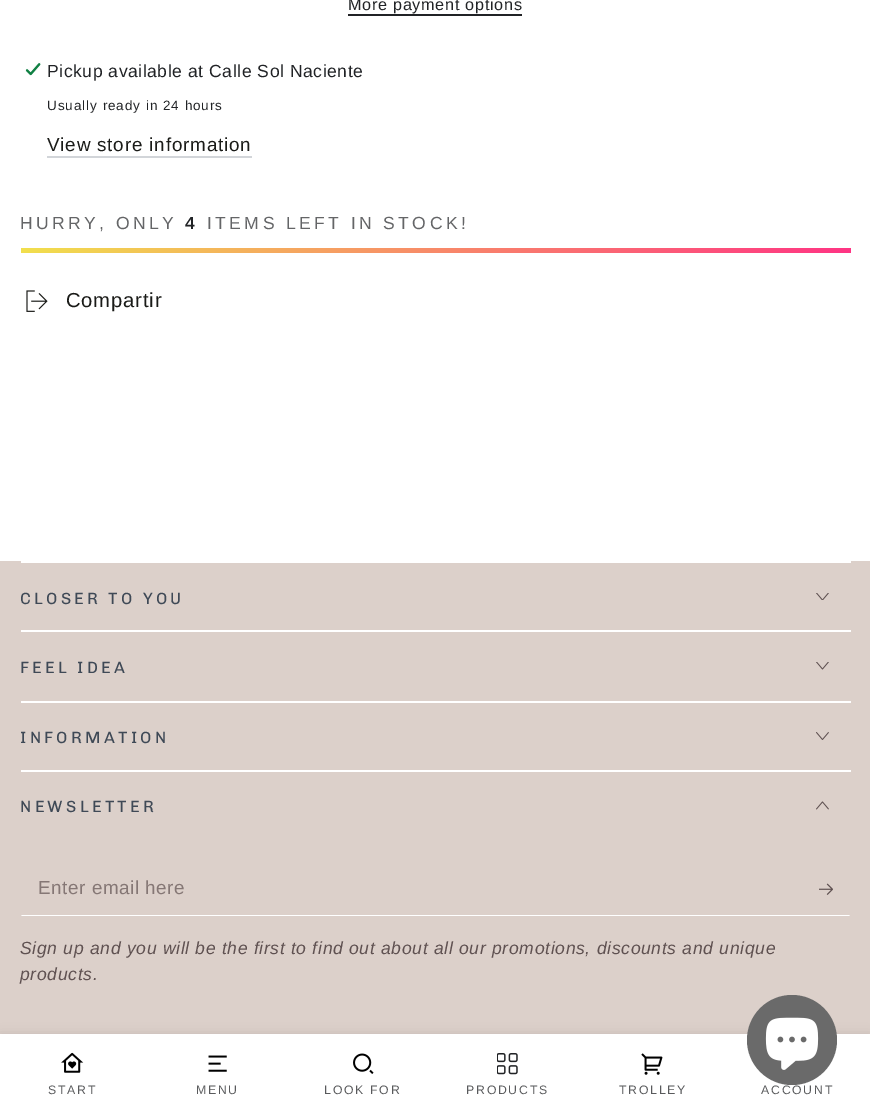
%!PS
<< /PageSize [870 1115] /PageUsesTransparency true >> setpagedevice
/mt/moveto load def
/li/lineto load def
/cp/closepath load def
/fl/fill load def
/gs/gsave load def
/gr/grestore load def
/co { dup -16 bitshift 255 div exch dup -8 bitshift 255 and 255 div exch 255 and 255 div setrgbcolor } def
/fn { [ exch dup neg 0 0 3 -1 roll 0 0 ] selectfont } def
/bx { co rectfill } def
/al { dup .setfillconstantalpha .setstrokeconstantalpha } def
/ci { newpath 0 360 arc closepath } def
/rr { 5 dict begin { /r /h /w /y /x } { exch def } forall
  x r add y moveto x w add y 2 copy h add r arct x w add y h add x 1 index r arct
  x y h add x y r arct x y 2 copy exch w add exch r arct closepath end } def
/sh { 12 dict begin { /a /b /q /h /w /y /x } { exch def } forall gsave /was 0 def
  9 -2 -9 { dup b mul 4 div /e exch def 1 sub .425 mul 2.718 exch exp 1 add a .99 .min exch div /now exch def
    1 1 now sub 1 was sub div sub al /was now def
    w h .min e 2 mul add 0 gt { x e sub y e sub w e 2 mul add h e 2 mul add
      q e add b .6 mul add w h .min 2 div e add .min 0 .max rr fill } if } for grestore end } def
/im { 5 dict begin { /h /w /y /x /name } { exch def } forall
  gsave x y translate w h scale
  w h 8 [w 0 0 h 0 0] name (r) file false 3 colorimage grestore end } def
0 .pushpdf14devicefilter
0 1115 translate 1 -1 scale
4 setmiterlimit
0 0 870 1115 16#FFFFFF bx
348 14 174 2 16#212326 bx
(media/1.raw) 25 62 16 14 im
47 156 205 2 16#D2D5D9 bx
gs 21 248 mt 851 248 li 851 253 li 21 253 li cp clip newpath
<< /ShadingType 2 /ColorSpace /DeviceRGB /Coords [573 446 298 53] /Extend [true true] /Function << /FunctionType 2 /Domain [0 1] /C0 [1 .204 .518] /C1 [.945 .878 .302] /N 1 >> >> shfill gr
(media/2.raw) 26 290 22 22 im
0 561 870 473 16#DCD0CA bx
21 561 830 2 16#FFFFFF bx
21 630 830 2 16#FFFFFF bx
(media/3.raw) 816 593 13 7 im
21 701 830 2 16#FFFFFF bx
(media/4.raw) 816 662 13 8 im
21 770 830 2 16#FFFFFF bx
(media/5.raw) 816 732 13 8 im
(media/6.raw) 816 801 13 9 im
850 916 mt 21 916 li 22 915 li 849 915 li cp fl
(media/7.raw) 819 883 14 12 im
16#212326 co
0 1035 870 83 0 5.5 .15 sh
0 1034 870 81 16#FFFFFF bx
16#6A6A6A co
792 1040 45 ci fl
(media/8.raw) 765 1017 54 53 im
(media/9.raw) 61 1052 23 21 im
(media/10.raw) 208 1055 19 17 im
(media/11.raw) 353 1053 21 21 im
(media/12.raw) 497 1053 21 22 im
(media/13.raw) 641 1053 22 22 im
/Arimo-Regular 16.25 fn
16#212326 co
348 10 mt .68 0 (More payment options) ashow
/Arimo-Regular 17.55 fn
47 77 mt .55 0 (Pickup available at Calle Sol Naciente) ashow
/Arimo-Regular 13.5 fn
47 110 mt .95 0 (Usually ready in 24 hours) ashow
/Arimo-Regular 18.9 fn
16#1A1B18 co
47 151 mt .8 0 (View store information) ashow
/Arimo-Regular 17.55 fn
16#646567 co
20 229 mt 3.4 0 (HURRY, ONLY) ashow
/Arimo-SemiBold 17.55 fn
16#212326 co
185 229 mt 3.4 0 (4) ashow
/Arimo-Regular 17.55 fn
16#646567 co
207 229 mt 3.4 0 (ITEMS LEFT IN STOCK!) ashow
/Arimo-Regular 20.25 fn
16#1A1B18 co
66 307 mt .8 0 (Compartir) ashow
/Chivo-Regular 16.25 fn
16#3F4956 co
20 604 mt 3.25 0 (CLOSER TO YOU) ashow
20 673 mt 3.25 0 (FEEL IDEA) ashow
20 743 mt 3.25 0 (INFORMATION) ashow
20 812 mt 3.25 0 (NEWSLETTER) ashow
/Arimo-Regular 18.9 fn
16#857775 co
38 894 mt .55 0 (Enter email here) ashow
/Arimo-Italic 17.55 fn
16#5F5151 co
20 954 mt .68 0 (Sign up and you will be the first to find out about all our promotions, discounts and unique) ashow
20 980 mt .68 0 (products.) ashow
/Arimo-Regular 12.25 fn
16#595A5C co
48 1094 mt 1.75 0 (START) ashow
196 1094 mt 1.75 0 (MENU) ashow
324 1094 mt 1.75 0 (LOOK FOR) ashow
466 1094 mt 1.75 0 (PRODUCTS) ashow
619 1094 mt 1.75 0 (TROLLEY) ashow
761 1094 mt 1.75 0 (ACCOUNT) ashow
.poppdf14devicefilter showpage
